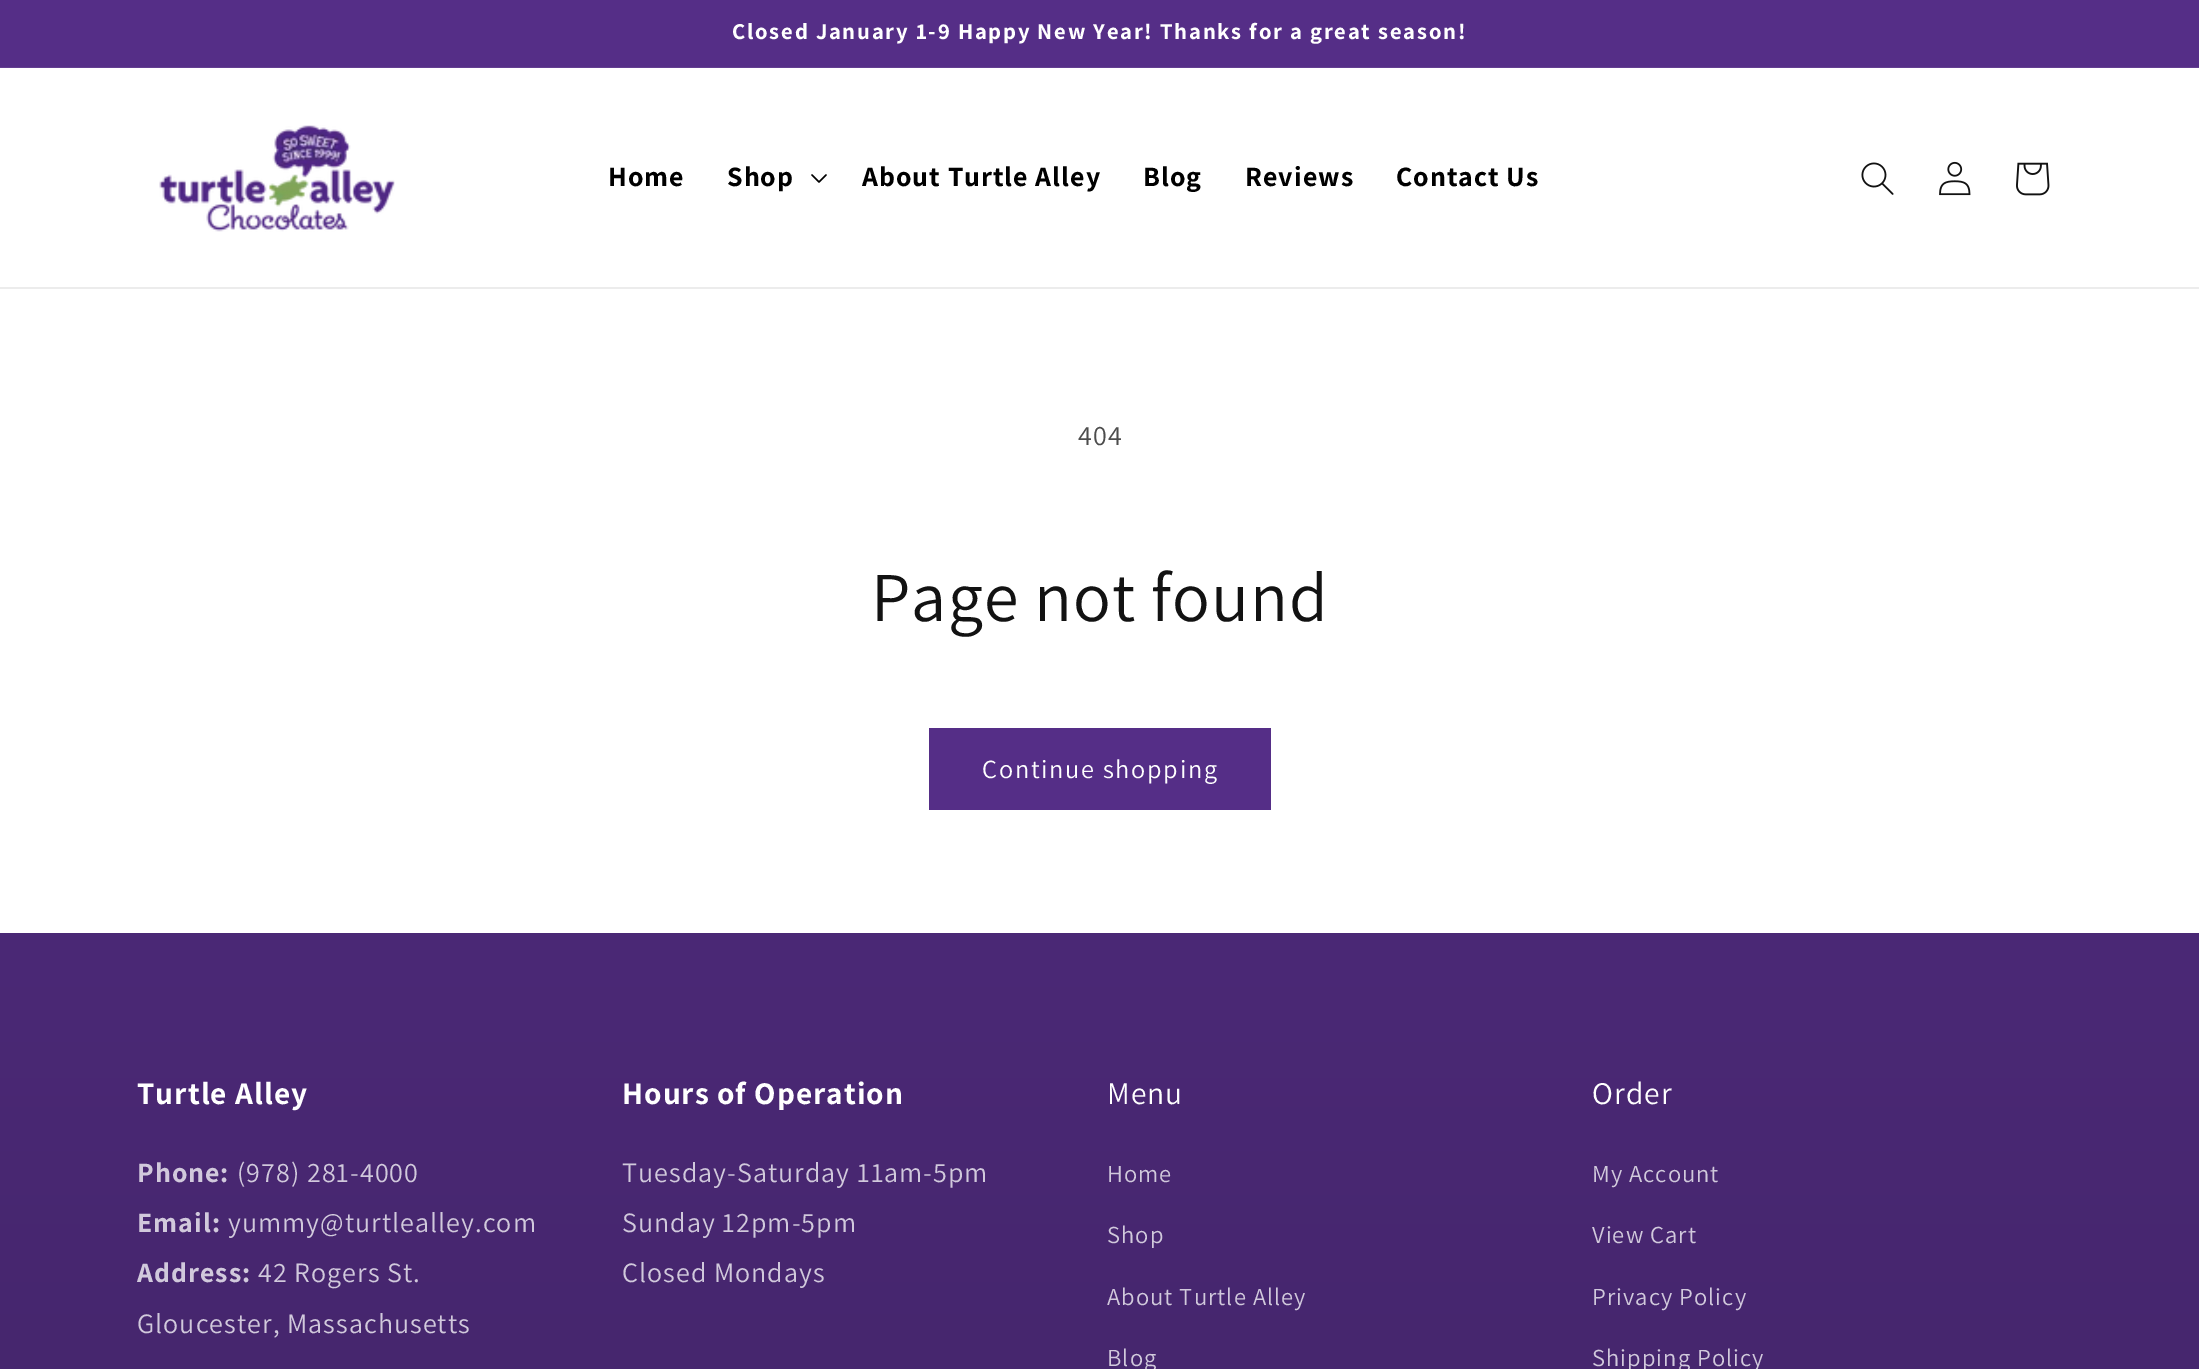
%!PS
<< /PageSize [2199 1369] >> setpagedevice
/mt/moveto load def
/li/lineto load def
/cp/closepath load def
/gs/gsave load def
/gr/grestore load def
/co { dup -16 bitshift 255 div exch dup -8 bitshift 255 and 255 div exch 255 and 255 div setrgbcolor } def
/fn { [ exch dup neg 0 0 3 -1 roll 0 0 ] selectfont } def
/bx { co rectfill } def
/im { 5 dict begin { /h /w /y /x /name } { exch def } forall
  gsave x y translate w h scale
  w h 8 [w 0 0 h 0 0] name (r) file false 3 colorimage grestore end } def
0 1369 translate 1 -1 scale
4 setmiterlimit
0 0 2199 1369 16#FFFFFF bx
gs 0 0 mt 2199 0 li 2199 67 li 0 67 li cp clip newpath
<< /ShadingType 2 /ColorSpace /DeviceRGB /Coords [1100 0 1100 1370] /Extend [true true] /Function << /FunctionType 3 /Domain [0 1] /Functions [<< /FunctionType 2 /Domain [0 1] /C0 [.333 .18 .529] /C1 [.333 .18 .529] /N 1 >> << /FunctionType 2 /Domain [0 1] /C0 [.333 .18 .529] /C1 [.275 .149 .431] /N 1 >>] /Bounds [.03] /Encode [0 1 0 1] >> >> shfill gr
gs 0 67 mt 2199 67 li 2199 68 li 0 68 li cp clip newpath
<< /ShadingType 2 /ColorSpace /DeviceRGB /Coords [1100 0 1100 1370] /Extend [true true] /Function << /FunctionType 3 /Domain [0 1] /Functions [<< /FunctionType 2 /Domain [0 1] /C0 [.388 .247 .569] /C1 [.388 .247 .569] /N 1 >> << /FunctionType 2 /Domain [0 1] /C0 [.388 .247 .569] /C1 [.333 .216 .478] /N 1 >>] /Bounds [.03] /Encode [0 1 0 1] >> >> shfill gr
0 287 2199 2 16#ECECEC bx
(media/1.raw) 159 125 236 107 im
(media/2.raw) 811 174 16 9 im
(media/3.raw) 1861 162 33 33 im
(media/4.raw) 1939 161 32 35 im
(media/5.raw) 2016 162 34 34 im
929 728 342 82 16#552E87 bx
gs 0 933 mt 2199 933 li 2199 1369 li 0 1369 li cp clip newpath
<< /ShadingType 2 /ColorSpace /DeviceRGB /Coords [1100 0 1100 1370] /Extend [true true] /Function << /FunctionType 3 /Domain [0 1] /Functions [<< /FunctionType 2 /Domain [0 1] /C0 [.333 .18 .529] /C1 [.333 .18 .529] /N 1 >> << /FunctionType 2 /Domain [0 1] /C0 [.333 .18 .529] /C1 [.275 .149 .431] /N 1 >>] /Bounds [.03] /Encode [0 1 0 1] >> >> shfill gr
/Assistant-Bold 22.75 fn
16#FFFFFF co
732 39 mt 1.75 0 (Closed January 1-9 Happy New Year! Thanks for a great season!) ashow
/Assistant-Bold 28 fn
16#000000 co
608 186 mt 1.05 0 (Home) ashow
727 186 mt 1.05 0 (Shop) ashow
862 186 mt 1.05 0 (About Turtle Alley) ashow
1143 186 mt 1.05 0 (Blog) ashow
1245 186 mt 1.05 0 (Reviews) ashow
1396 186 mt 1.05 0 (Contact Us) ashow
/Assistant-Regular 28 fn
16#4D4D4D co
1078 445 mt 1.05 0 (404) ashow
/Assistant-Regular 70 fn
16#121212 co
871 621 mt 1.05 0 (Page not found) ashow
/Assistant-Regular 26.25 fn
16#FFFFFF co
982 778 mt 1.75 0 (Continue shopping) ashow
/Assistant-Bold 31.5 fn
137 1104 mt 1.05 0 (Turtle Alley) ashow
/Assistant-Bold 28 fn
16#D1C9DC co
137 1182 mt 1.05 0 (Phone:) ashow
/Assistant-Regular 28 fn
237 1182 mt 1.05 0 (\(978\) 281-4000) ashow
/Assistant-Bold 28 fn
137 1232 mt 1.05 0 (Email:) ashow
/Assistant-Regular 28 fn
228 1232 mt 1.05 0 (yummy@turtlealley.com) ashow
/Assistant-Bold 28 fn
137 1282 mt 1.05 0 (Address:) ashow
/Assistant-Regular 28 fn
258 1282 mt 1.05 0 (42 Rogers St.) ashow
137 1333 mt 1.05 0 (Gloucester, Massachusetts) ashow
/Assistant-Bold 31.5 fn
16#FFFFFF co
622 1104 mt 1.05 0 (Hours of Operation) ashow
/Assistant-Regular 28 fn
16#D1C9DC co
622 1182 mt 1.05 0 (Tuesday-Saturday 11am-5pm) ashow
622 1232 mt 1.05 0 (Sunday 12pm-5pm) ashow
622 1282 mt 1.05 0 (Closed Mondays) ashow
/Assistant-Regular 31.5 fn
16#FFFFFF co
1107 1104 mt 1.05 0 (Menu) ashow
/Assistant-Regular 24.5 fn
16#D1C9DC co
1107 1182 mt 1.05 0 (Home) ashow
1107 1243 mt 1.05 0 (Shop) ashow
1107 1305 mt 1.05 0 (About Turtle Alley) ashow
1107 1366 mt 1.05 0 (Blog) ashow
/Assistant-Regular 31.5 fn
16#FFFFFF co
1592 1104 mt 1.05 0 (Order) ashow
/Assistant-Regular 24.5 fn
16#D1C9DC co
1592 1182 mt 1.05 0 (My Account) ashow
1592 1243 mt 1.05 0 (View Cart) ashow
1592 1305 mt 1.05 0 (Privacy Policy) ashow
1592 1366 mt 1.05 0 (Shipping Policy) ashow
showpage
